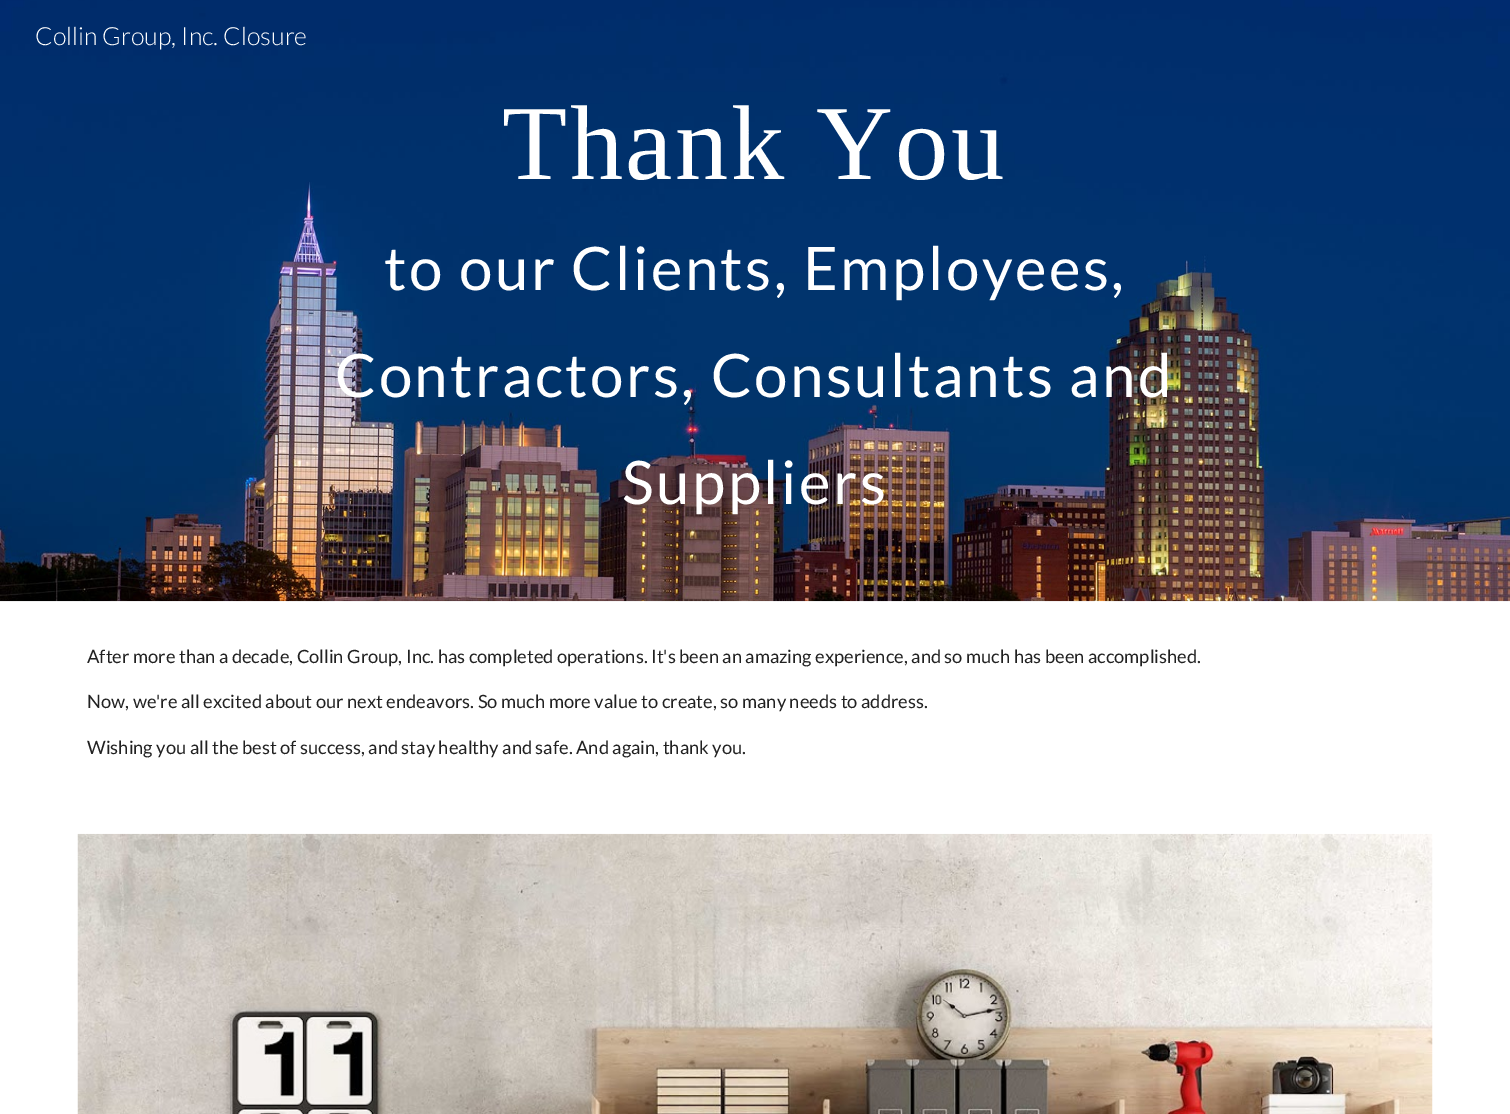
%!PS
<< /PageSize [1510 1114] >> setpagedevice
/mt/moveto load def
/co { dup -16 bitshift 255 div exch dup -8 bitshift 255 and 255 div exch 255 and 255 div setrgbcolor } def
/fn { [ exch dup neg 0 0 3 -1 roll 0 0 ] selectfont } def
/tx { co fn moveto show } def
/bx { co rectfill } def
/im { 5 dict begin { /h /w /y /x /name } { exch def } forall
  gsave x y translate w h scale
  w h 8 [w 0 0 h 0 0] name (r) file false 3 colorimage grestore end } def
0 1114 translate 1 -1 scale
4 setmiterlimit
0 0 1510 1114 16#FFFFFF bx
(media/1.raw) 0 0 1510 602 im
(media/2.raw) 77 833 1356 281 im
(Collin Group, Inc. Closure) 35 45 /Lato-Light 25 16#FFFFFF tx
/LiberationSerif-Regular 106.5 fn
502 179 mt 2.5 0 (Thank You) ashow
/Lato-Regular 60 fn
384 290 mt 2.5 0 (to our Clients, Employees,) ashow
335 397 mt 2.5 0 (Contractors, Consultants and) ashow
622 504 mt 2.5 0 (Suppliers) ashow
(After more than a decade, Collin Group, Inc. has completed operations. It's been an amazing experience, and so much has been accomplished.) 87 663 /Lato-Regular 18.33 16#212121 tx
(Now, we're all excited about our next endeavors. So much more value to create, so many needs to address.) 87 708 /Lato-Regular 18.33 16#212121 tx
(Wishing you all the best of success, and stay healthy and safe. And again, thank you.) 87 754 /Lato-Regular 18.33 16#212121 tx
showpage
